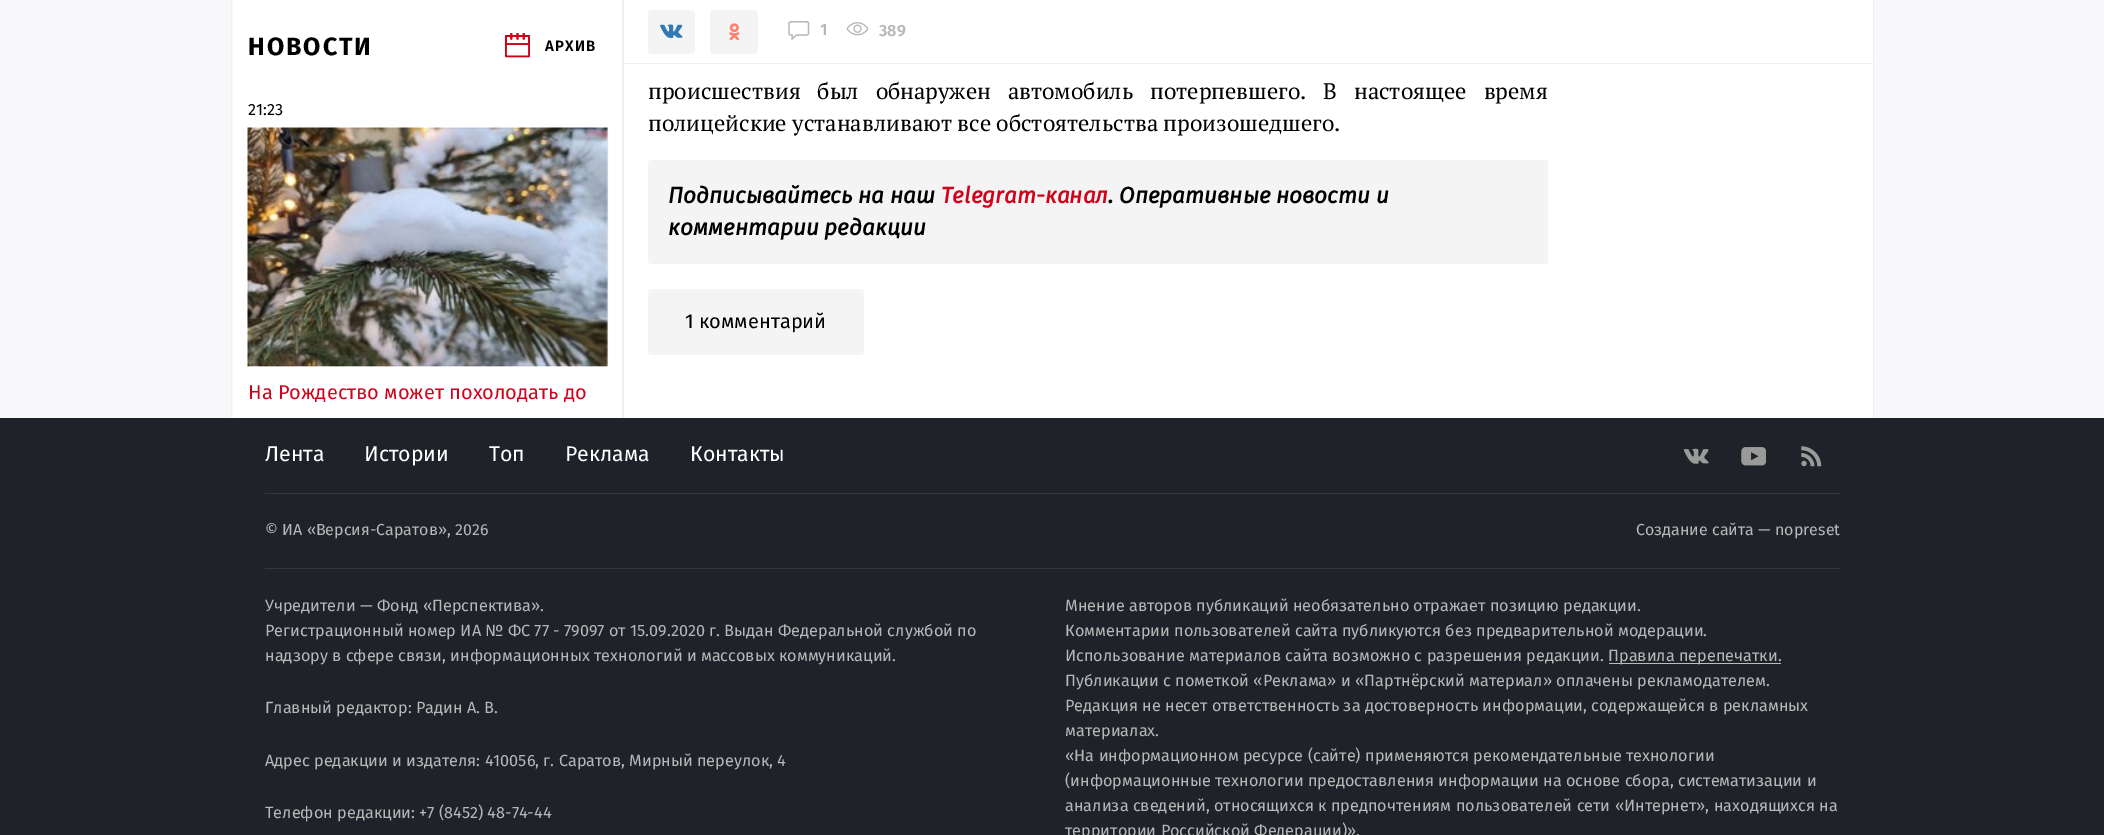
%!PS
<< /PageSize [2104 835] /PageUsesTransparency true >> setpagedevice
/mt/moveto load def
/li/lineto load def
/cp/closepath load def
/fl/fill load def
/co { dup -16 bitshift 255 div exch dup -8 bitshift 255 and 255 div exch 255 and 255 div setrgbcolor } def
/fn { [ exch dup neg 0 0 3 -1 roll 0 0 ] selectfont } def
/tx { co fn moveto show } def
/bx { co rectfill } def
/al { dup .setfillconstantalpha .setstrokeconstantalpha } def
/rr { 5 dict begin { /r /h /w /y /x } { exch def } forall
  x r add y moveto x w add y 2 copy h add r arct x w add y h add x 1 index r arct
  x y h add x y r arct x y 2 copy exch w add exch r arct closepath end } def
/im { 5 dict begin { /h /w /y /x /name } { exch def } forall
  gsave x y translate w h scale
  w h 8 [w 0 0 h 0 0] name (r) file false 3 colorimage grestore end } def
0 .pushpdf14devicefilter
0 835 translate 1 -1 scale
4 setmiterlimit
0 0 2104 835 16#F8F8FA bx
16#EFEFEF co
234 -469 mt 1872 -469 li 1872 418 li 234 418 li 1874 418 li 1874 -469 li cp fl
233 0 1640 418 16#FFFFFF bx
231 0 1 418 16#EFEFEF bx
622 0 2 418 16#EFEFEF bx
(media/1.raw) 505 33 25 25 im
(media/2.raw) 247 127 361 240 im
0.05 al
16#000000 co
248.5 128.5 359 237 rectstroke
1 al
16#F4F4F4 co
648 10 47 44 4 rr fl
(media/3.raw) 660 24 23 14 im
710 10 48 44 4 rr fl
(media/4.raw) 729 23 11 18 im
(media/5.raw) 788 21 22 20 im
(media/6.raw) 846 22 23 14 im
624 63 1249 1 16#F1F1F1 bx
16#F4F4F4 co
648 160 900 104 4 rr fl
648 289 216 66 4 rr fl
0 418 2104 417 16#1F2228 bx
(media/7.raw) 1684 448 25 16 im
(media/8.raw) 1741 447 25 19 im
(media/9.raw) 1801 446 21 21 im
265 493 1575 1 16#34373D bx
265 568 1575 1 16#34373D bx
1609 663 172 1 16#BCBCBC bx
/FiraSans-Bold 25 fn
16#000000 co
248 55 mt 2 0 (НОВОСТИ) ashow
/FiraSans-SemiBold 15 fn
545 51 mt 1.25 0 (АРХИВ) ashow
(21:23) 248 115 /FiraSans-Regular 16.25 16#000000 tx
(На Рождество может похолодать до) 248 399 /FiraSans-Regular 20 16#D0021B tx
(1) 820 35 /FiraSans-SemiBold 16.25 16#B7B7B7 tx
(389) 879 36 /FiraSans-SemiBold 16.25 16#B7B7B7 tx
/PTSerif-Regular 22.5 fn
16#000000 co
648 99 mt 11.5 0 32 (происшествия был обнаружен автомобиль потерпевшего.) widthshow
1323 99 mt 11.5 0 32 (В настоящее время) widthshow
(полицейские устанавливают все обстоятельства произошедшего.) 648 131 /PTSerif-Regular 22.5 16#000000 tx
(Подписывайтесь на наш) 668 203 /FiraSans-BoldItalic 22.5 16#000000 tx
(Telegram-канал) 941 203 /FiraSans-BoldItalic 22.5 16#D0021B tx
(. Оперативные новости и) 1108 203 /FiraSans-BoldItalic 22.5 16#000000 tx
(комментарии редакции) 668 235 /FiraSans-BoldItalic 22.5 16#000000 tx
(1 комментарий) 685 328 /FiraSans-Regular 20 16#000000 tx
(Лента) 265 461 /FiraSans-Regular 21.25 16#FFFFFF tx
(Истории) 364 461 /FiraSans-Regular 21.25 16#FFFFFF tx
(Топ) 489 461 /FiraSans-Regular 21.25 16#FFFFFF tx
(Реклама) 565 461 /FiraSans-Regular 21.25 16#FFFFFF tx
(Контакты) 690 461 /FiraSans-Regular 21.25 16#FFFFFF tx
(© ИА «Версия-Саратов», 2026) 265 535 /FiraSans-Regular 16 16#B7B7B7 tx
(Создание сайта — nopreset) 1636 535 /FiraSans-Regular 16 16#B7B7B7 tx
(Учредители — Фонд «Перспектива».) 265 611 /FiraSans-Regular 16.25 16#B7B7B7 tx
(Регистрационный номер ИА № ФС 77 - 79097 от 15.09.2020 г. Выдан Федеральной службой по) 265 636 /FiraSans-Regular 16.25 16#B7B7B7 tx
(надзору в сфере связи, информационных технологий и массовых коммуникаций.) 265 661 /FiraSans-Regular 16.25 16#B7B7B7 tx
(Главный редактор: Радин А. В.) 265 713 /FiraSans-Regular 16.25 16#B7B7B7 tx
(Адрес редакции и издателя: 410056, г. Саратов, Мирный переулок, 4) 265 766 /FiraSans-Regular 16.25 16#B7B7B7 tx
(Телефон редакции: +7 \(8452\) 48-74-44) 265 818 /FiraSans-Regular 16.25 16#B7B7B7 tx
(Мнение авторов публикаций необязательно отражает позицию редакции.) 1065 611 /FiraSans-Regular 16.25 16#B7B7B7 tx
(Комментарии пользователей сайта публикуются без предварительной модерации.) 1065 636 /FiraSans-Regular 16.25 16#B7B7B7 tx
(Использование материалов сайта возможно с разрешения редакции.) 1065 661 /FiraSans-Regular 16.25 16#B7B7B7 tx
(Правила перепечатки.) 1608 661 /FiraSans-Regular 16.25 16#B7B7B7 tx
(Публикации с пометкой «Реклама» и «Партнёрский материал» оплачены рекламодателем.) 1065 686 /FiraSans-Regular 16.25 16#B7B7B7 tx
(Редакция не несет ответственность за достоверность информации, содержащейся в рекламных) 1065 711 /FiraSans-Regular 16.25 16#B7B7B7 tx
(материалах.) 1065 736 /FiraSans-Regular 16.25 16#B7B7B7 tx
(«На информационном ресурсе \(сайте\) применяются рекомендательные технологии) 1065 761 /FiraSans-Regular 16.25 16#B7B7B7 tx
(\(информационные технологии предоставления информации на основе сбора, систематизации и) 1065 786 /FiraSans-Regular 16.25 16#B7B7B7 tx
(анализа сведений, относящихся к предпочтениям пользователей сети «Интернет», находящихся на) 1065 811 /FiraSans-Regular 16.25 16#B7B7B7 tx
(территории Российской Федерации\)».) 1065 836 /FiraSans-Regular 16.25 16#B7B7B7 tx
.poppdf14devicefilter showpage
